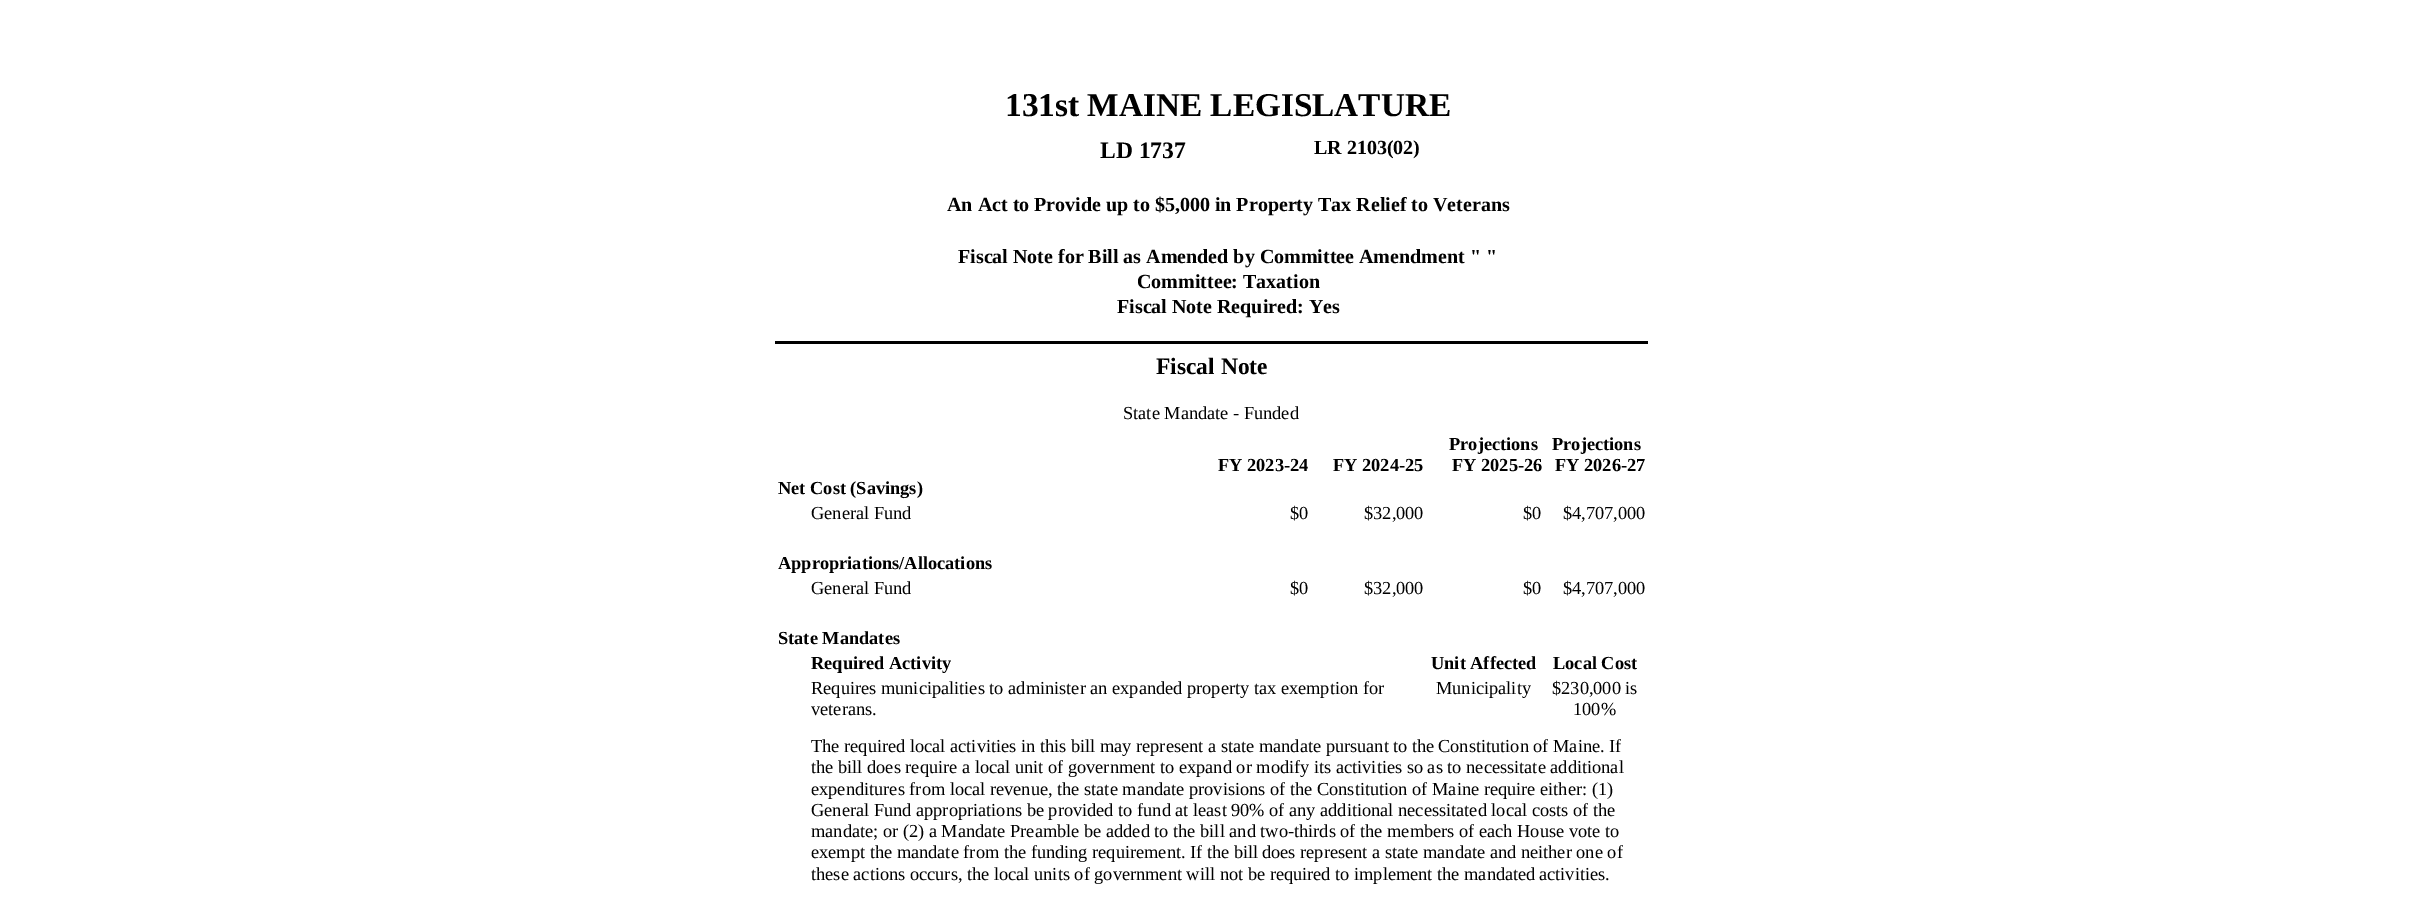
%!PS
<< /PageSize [2422 920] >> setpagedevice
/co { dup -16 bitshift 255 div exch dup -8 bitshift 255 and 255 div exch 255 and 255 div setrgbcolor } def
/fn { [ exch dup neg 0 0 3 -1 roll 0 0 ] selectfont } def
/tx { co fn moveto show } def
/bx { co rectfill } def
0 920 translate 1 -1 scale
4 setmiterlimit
0 0 2422 920 16#FFFFFF bx
775 341 873 3 16#000000 bx
(131st MAINE LEGISLATURE) 1005 116 /LiberationSerif-Bold 33.3 16#000000 tx
(LD 1737) 1100 158 /LiberationSerif-Bold 23.5 16#000000 tx
(LR 2103\(02\)) 1314 154 /LiberationSerif-Bold 20 16#000000 tx
(An Act to Provide up to $5,000 in Property Tax Relief to Veterans) 947 211 /LiberationSerif-Bold 20 16#000000 tx
(Fiscal Note for Bill as Amended by Committee Amendment " ") 958 263 /LiberationSerif-Bold 20 16#000000 tx
(Committee: Taxation) 1137 288 /LiberationSerif-Bold 20 16#000000 tx
(Fiscal Note Required: Yes) 1117 313 /LiberationSerif-Bold 20 16#000000 tx
(Fiscal Note) 1156 374 /LiberationSerif-Bold 23.5 16#000000 tx
(State Mandate - Funded) 1123 419 /LiberationSerif-Regular 18.35 16#000000 tx
(FY 2023-24) 1218 471 /LiberationSerif-Bold 18.35 16#000000 tx
(FY 2024-25) 1333 471 /LiberationSerif-Bold 18.35 16#000000 tx
(Projections) 1449 450 /LiberationSerif-Bold 18.35 16#000000 tx
(FY 2025-26) 1452 471 /LiberationSerif-Bold 18.35 16#000000 tx
(Projections) 1552 450 /LiberationSerif-Bold 18.35 16#000000 tx
(FY 2026-27) 1555 471 /LiberationSerif-Bold 18.35 16#000000 tx
(Net Cost \(Savings\)) 778 494 /LiberationSerif-Bold 18.35 16#000000 tx
(General Fund) 811 519 /LiberationSerif-Regular 18.35 16#000000 tx
($0) 1290 519 /LiberationSerif-Regular 18.35 16#000000 tx
($32,000) 1364 519 /LiberationSerif-Regular 18.35 16#000000 tx
($0) 1523 519 /LiberationSerif-Regular 18.35 16#000000 tx
($4,707,000) 1563 519 /LiberationSerif-Regular 18.35 16#000000 tx
(Appropriations/Allocations) 778 569 /LiberationSerif-Bold 18.35 16#000000 tx
(General Fund) 811 594 /LiberationSerif-Regular 18.35 16#000000 tx
($0) 1290 594 /LiberationSerif-Regular 18.35 16#000000 tx
($32,000) 1364 594 /LiberationSerif-Regular 18.35 16#000000 tx
($0) 1523 594 /LiberationSerif-Regular 18.35 16#000000 tx
($4,707,000) 1563 594 /LiberationSerif-Regular 18.35 16#000000 tx
(State Mandates) 778 644 /LiberationSerif-Bold 18.35 16#000000 tx
(Required Activity) 811 669 /LiberationSerif-Bold 18.35 16#000000 tx
(Unit Affected) 1431 669 /LiberationSerif-Bold 18.35 16#000000 tx
(Local Cost) 1553 669 /LiberationSerif-Bold 18.35 16#000000 tx
(Requires municipalities to administer an expanded property tax exemption for) 811 694 /LiberationSerif-Regular 18.35 16#000000 tx
(veterans.) 811 715 /LiberationSerif-Regular 18.35 16#000000 tx
(Municipality) 1436 694 /LiberationSerif-Regular 18.35 16#000000 tx
($230,000 is) 1552 694 /LiberationSerif-Regular 18.35 16#000000 tx
(100%) 1573 715 /LiberationSerif-Regular 18.35 16#000000 tx
(The required local activities in this bill may represent a state mandate pursuant to the) 811 752 /LiberationSerif-Regular 18.35 16#000000 tx
(Constitution of Maine. If) 1438 752 /LiberationSerif-Regular 18.35 16#000000 tx
(the bill does require a local unit of government to expand or modify its activities so as to necessitate additional) 811 773 /LiberationSerif-Regular 18.35 16#000000 tx
(expenditures from local revenue, the state mandate provisions of the Constitution of Maine require either: \(1\)) 811 795 /LiberationSerif-Regular 18.35 16#000000 tx
(General Fund appropriations be provided to fund at least) 811 816 /LiberationSerif-Regular 18.35 16#000000 tx
(90% of any additional necessitated local costs of the) 1231 816 /LiberationSerif-Regular 18.35 16#000000 tx
(mandate; or \(2\) a Mandate Preamble be added to the bill and two-thirds of the members of each House vote to) 811 837 /LiberationSerif-Regular 18.35 16#000000 tx
(exempt the mandate from the funding requirement. If the bill) 811 858 /LiberationSerif-Regular 18.35 16#000000 tx
(does represent a state mandate and neither one of) 1262 858 /LiberationSerif-Regular 18.35 16#000000 tx
(these actions occurs, the local units of government will not be required to implement the mandated) 811 880 /LiberationSerif-Regular 18.35 16#000000 tx
(activities.) 1539 880 /LiberationSerif-Regular 18.35 16#000000 tx
showpage
